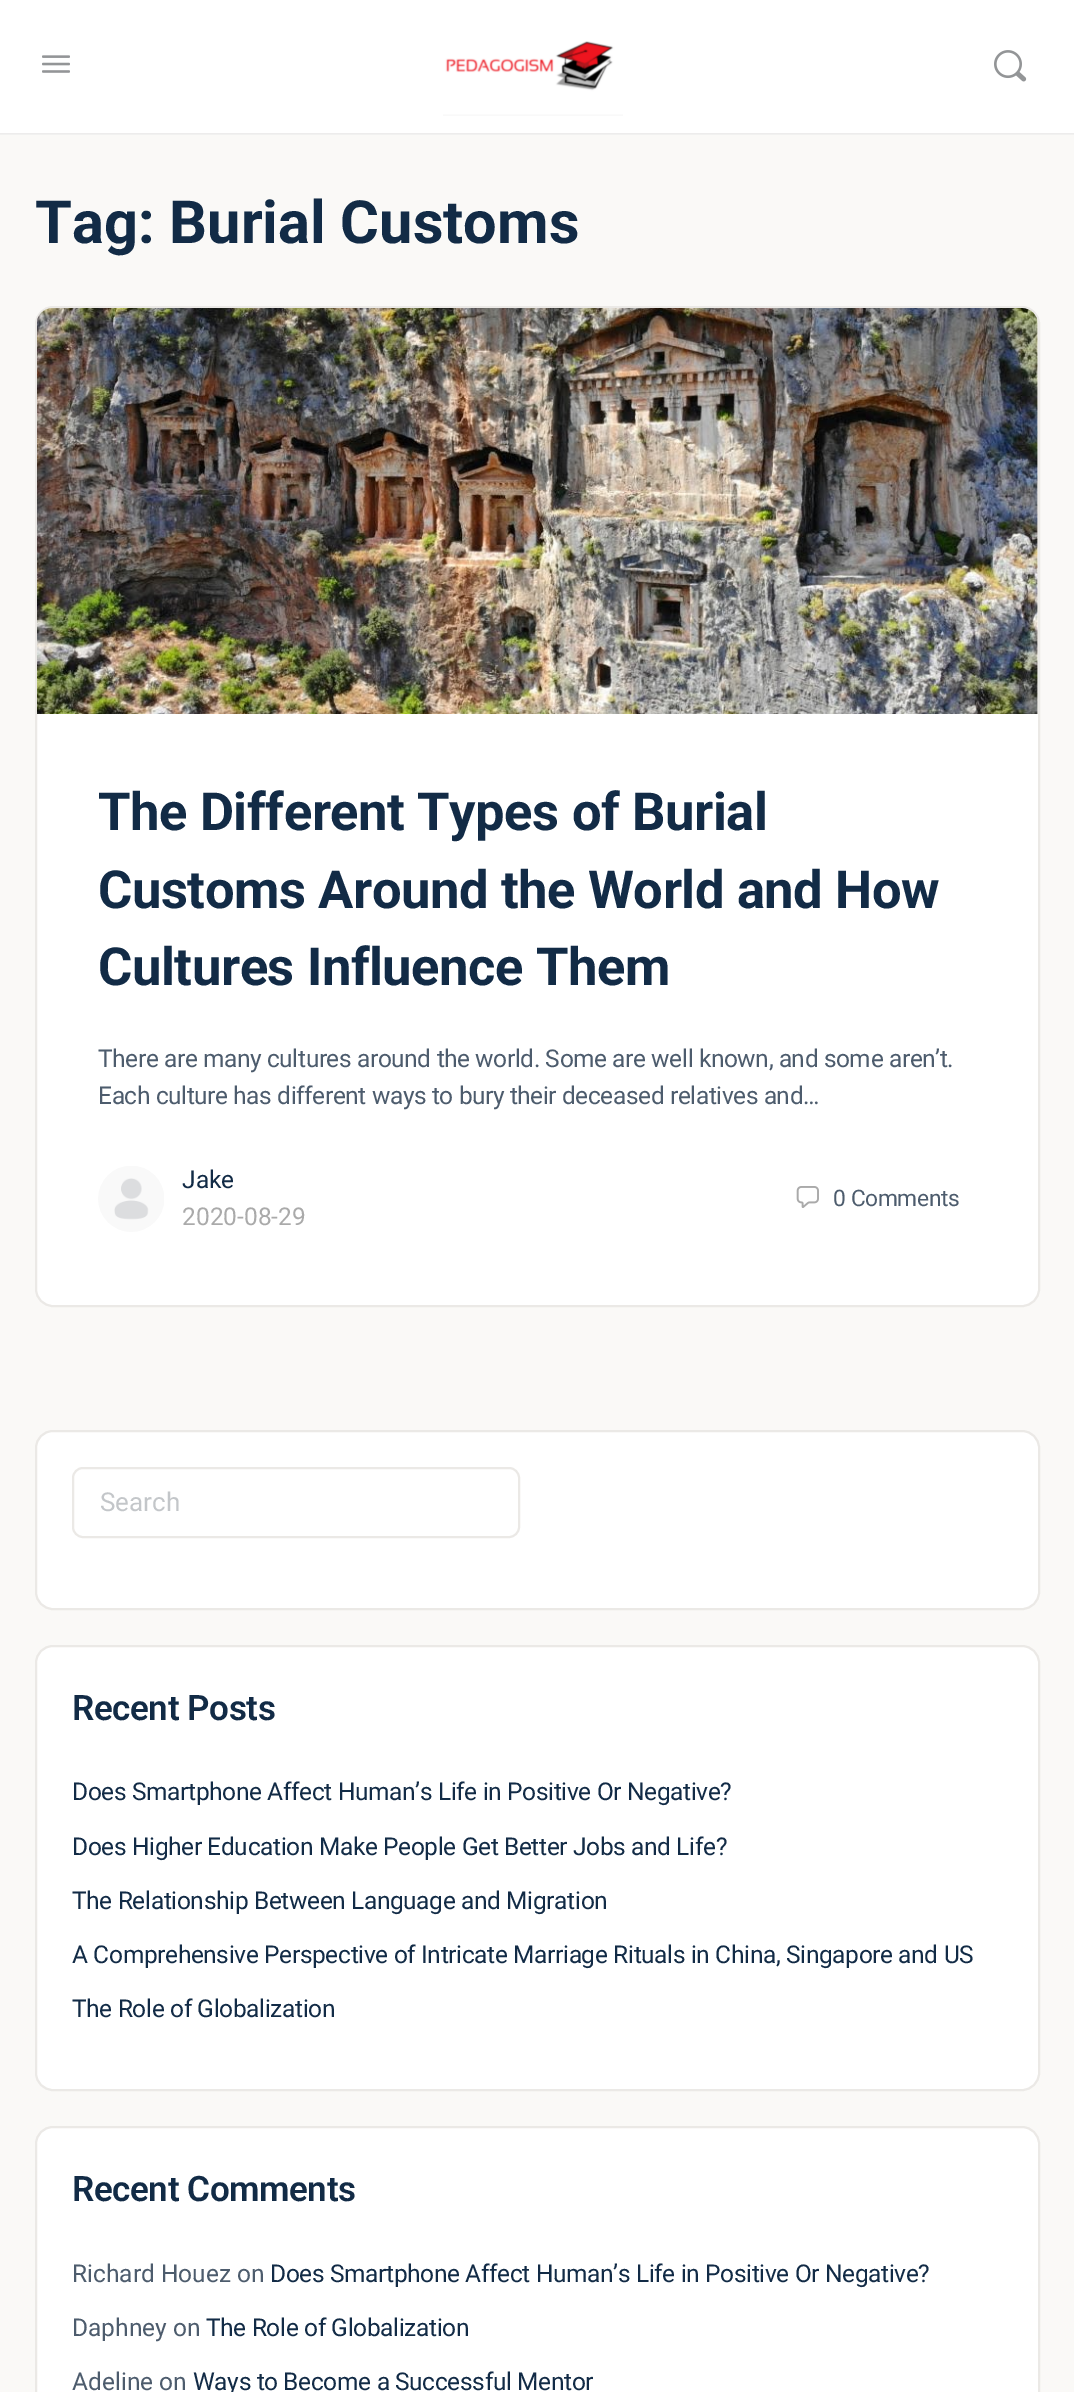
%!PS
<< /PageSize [1074 2392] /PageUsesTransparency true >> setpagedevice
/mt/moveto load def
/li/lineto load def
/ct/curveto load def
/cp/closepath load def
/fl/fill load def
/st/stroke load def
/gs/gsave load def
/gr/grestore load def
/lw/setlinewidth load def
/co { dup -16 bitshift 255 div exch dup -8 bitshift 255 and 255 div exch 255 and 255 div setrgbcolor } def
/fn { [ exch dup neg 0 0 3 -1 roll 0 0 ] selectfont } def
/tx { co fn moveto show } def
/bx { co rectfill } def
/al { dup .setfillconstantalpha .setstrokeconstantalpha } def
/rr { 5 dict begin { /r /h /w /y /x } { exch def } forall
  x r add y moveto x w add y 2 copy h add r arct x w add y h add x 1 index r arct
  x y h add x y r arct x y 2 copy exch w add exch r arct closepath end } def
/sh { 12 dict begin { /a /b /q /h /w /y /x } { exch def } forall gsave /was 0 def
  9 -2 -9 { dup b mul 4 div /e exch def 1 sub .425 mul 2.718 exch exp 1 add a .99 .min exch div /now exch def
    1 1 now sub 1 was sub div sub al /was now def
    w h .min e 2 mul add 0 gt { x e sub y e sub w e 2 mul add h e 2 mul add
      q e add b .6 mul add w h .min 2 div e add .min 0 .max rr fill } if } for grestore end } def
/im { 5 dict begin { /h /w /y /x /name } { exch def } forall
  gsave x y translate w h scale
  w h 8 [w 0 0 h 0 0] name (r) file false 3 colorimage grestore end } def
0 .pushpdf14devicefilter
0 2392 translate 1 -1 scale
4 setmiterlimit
0 0 1074 2392 16#FAF9F7 bx
16#41476C co
0 0 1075 133 0 1 .15 sh
0.05 al
16#8B8D9D co
0 133 mt 0 135 li 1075 135 li 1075 2 li 1074 2 li 1074 133 li cp fl
1 al
0 0 1074 133 16#FFFFFF bx
(media/1.raw) 42 55 28 18 im
(media/2.raw) 443 41 180 75 im
(media/3.raw) 994 50 33 32 im
36 307 1003 999 17 rr gs fl gr
16#EBE9E6 co
2 lw
st
16#FBF7F1 co
53 308 mt 1022 308 li 1031 308 1038 315 1038 324 ct 1038 714 li 37 714 li 37 324 li 37 315 44 308 53 308 ct cp fl
(media/4.raw) 37 308 1001 406 im
(media/5.raw) 98 1166 66 66 im
(media/6.raw) 796 1186 23 22 im
16#FFFFFF co
36 1431 1003 178 17 rr gs fl gr
16#EBE9E6 co
st
73 1468 446 69 10 rr st
16#FFFFFF co
36 1646 1003 444 17 rr gs fl gr
16#EBE9E6 co
st
16#FFFFFF co
36 2127 1003 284 17 rr gs fl gr
16#EBE9E6 co
st
(Tag: Burial Customs) 35 243 /Roboto-Bold 59.5 16#122B46 tx
/Roboto-Bold 52.5 fn
98 830 mt -.42 0 (The Different Types of Burial) ashow
98 908 mt -.42 0 (Customs Around the World and How) ashow
98 985 mt -.42 0 (Cultures Influence Them) ashow
/Roboto-Regular 24.5 fn
16#4D5C6D co
98 1067 mt -.42 0 (There are many cultures around the world. Some are well known, and some aren’t.) ashow
98 1104 mt -.42 0 (Each culture has different ways to bury their deceased relatives and…) ashow
(Jake) 182 1188 /Roboto-Regular 24.5 16#122B46 tx
(2020-08-29) 182 1225 /Roboto-Regular 24.5 16#AAAAAA tx
/Roboto-Regular 22.75 fn
16#4D5C6D co
833 1206 mt -.37 0 (0 Comments) ashow
(Search) 100 1511 /Roboto-Regular 26 16#C3C6C9 tx
/Roboto-SemiBold 35 fn
16#122B46 co
72 1720 mt -.42 0 (Recent Posts) ashow
/Roboto-Regular 24.5 fn
72 1800 mt -.37 0 (Does Smartphone Affect Human’s Life in Positive Or Negative?) ashow
72 1855 mt -.37 0 (Does Higher Education Make People Get Better Jobs and Life?) ashow
72 1909 mt -.37 0 (The Relationship Between Language and Migration) ashow
72 1963 mt -.37 0 (A Comprehensive Perspective of Intricate Marriage Rituals in China, Singapore and US) ashow
72 2017 mt -.37 0 (The Role of Globalization) ashow
/Roboto-SemiBold 35 fn
72 2201 mt -.42 0 (Recent Comments) ashow
(Richard Houez on) 72 2282 /Roboto-Regular 24.5 16#4D5C6D tx
16#122B46 co
270 2282 mt -.37 0 (Does Smartphone Affect Human’s Life in Positive Or Negative?) ashow
(Daphney on) 72 2336 /Roboto-Regular 24.5 16#4D5C6D tx
16#122B46 co
206 2336 mt -.37 0 (The Role of Globalization) ashow
(Adeline on) 72 2390 /Roboto-Regular 24.5 16#4D5C6D tx
16#122B46 co
193 2390 mt -.37 0 (Ways to Become a Successful Mentor) ashow
.poppdf14devicefilter showpage
